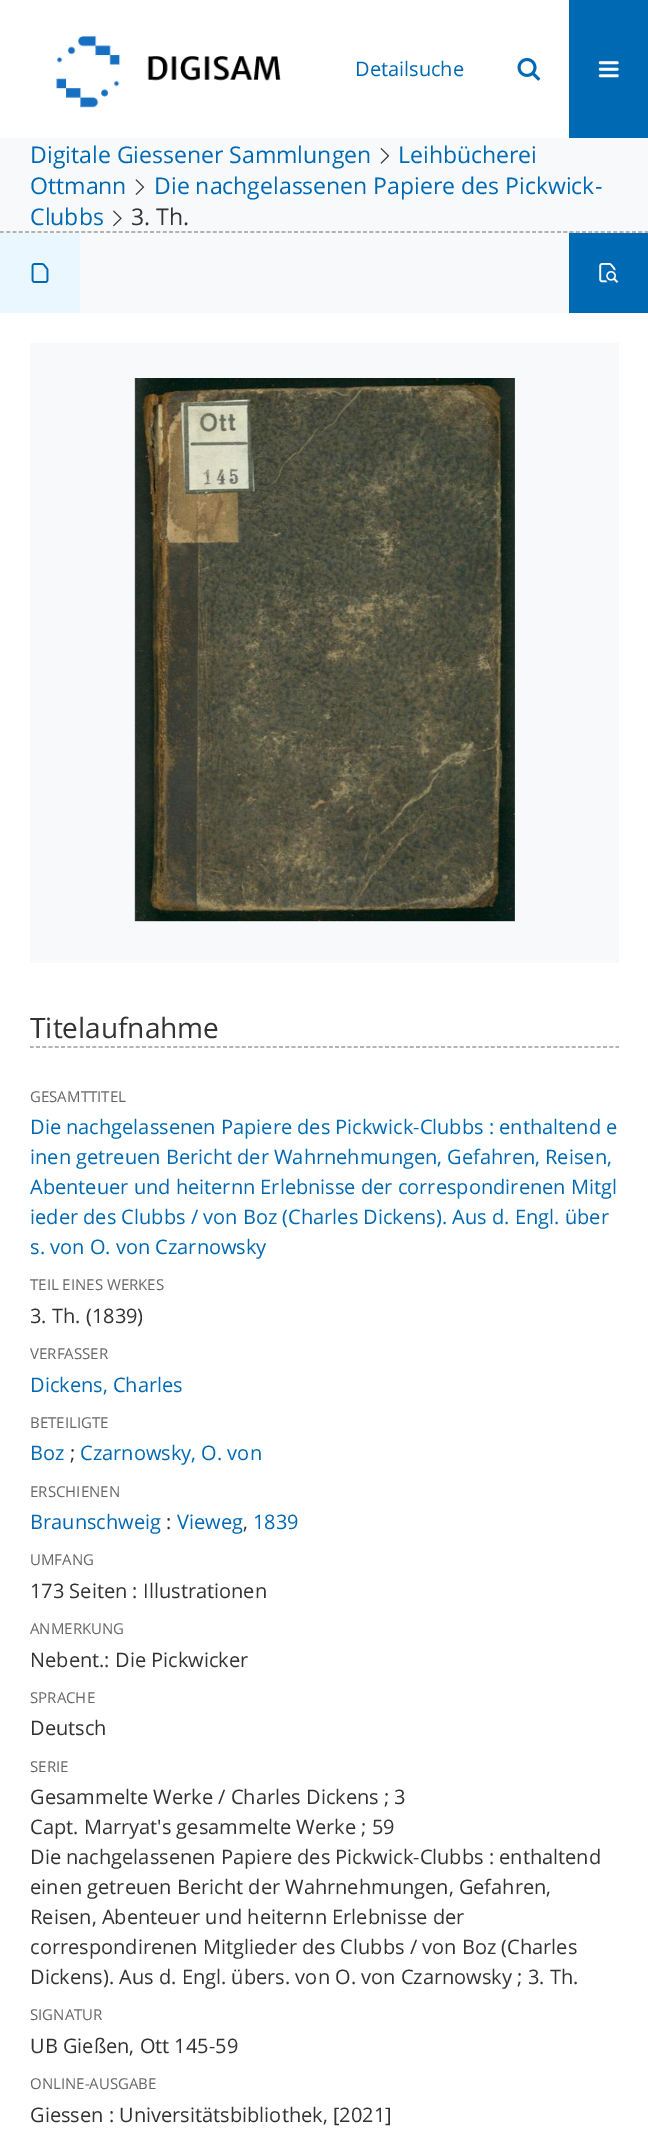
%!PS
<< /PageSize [648 2132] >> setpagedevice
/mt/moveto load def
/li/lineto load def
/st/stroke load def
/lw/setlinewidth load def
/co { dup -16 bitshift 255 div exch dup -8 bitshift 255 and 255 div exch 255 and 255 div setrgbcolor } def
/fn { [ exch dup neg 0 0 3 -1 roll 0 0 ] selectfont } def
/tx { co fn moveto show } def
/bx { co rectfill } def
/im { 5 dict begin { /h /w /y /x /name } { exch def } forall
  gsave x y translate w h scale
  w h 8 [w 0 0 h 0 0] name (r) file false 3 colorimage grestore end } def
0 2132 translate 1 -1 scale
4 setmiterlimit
0 0 648 2132 16#FFFFFF bx
(media/1.raw) 56 36 225 72 im
(media/2.raw) 517 58 24 23 im
569 0 79 138 16#0069B3 bx
(media/3.raw) 598 61 21 17 im
0 138 648 95 16#F8F9FA bx
16#999999 co
1.2 lw
[3.75 2.51] 0 setdash
0 232 mt 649 232 li st
(media/4.raw) 380 148 10 16 im
(media/5.raw) 135 179 10 16 im
(media/6.raw) 113 210 9 17 im
80 233 489 80 16#F8F9FA bx
0 233 80 80 16#EAF7FF bx
(media/7.raw) 31 263 18 20 im
569 233 79 80 16#0069B3 bx
(media/8.raw) 599 263 20 20 im
30 343 589 620 16#F8F9FA bx
(media/9.raw) 134 378 381 544 im
16#999999 co
[3.75 2.48] 0 setdash
30 1047 mt 619 1047 li st
(Detailsuche) 355 76 /OpenSans-Regular 20 16#0069B3 tx
(Digitale Giessener Sammlungen) 30 163 /OpenSans-Regular 23 16#0069B3 tx
(Leihbücherei) 398 163 /OpenSans-Regular 23 16#0069B3 tx
(Ottmann) 30 194 /OpenSans-Regular 23 16#0069B3 tx
(Die nachgelassenen Papiere des Pickwick-) 154 194 /OpenSans-Regular 23 16#0069B3 tx
(Clubbs) 30 225 /OpenSans-Regular 23 16#0069B3 tx
(3. Th.) 131 225 /OpenSans-Regular 23 16#333333 tx
(Titelaufnahme) 30 1038 /OpenSans-Regular 28 16#333333 tx
(GESAMTTITEL) 30 1102 /OpenSans-Regular 15 16#666666 tx
(Die nachgelassenen Papiere des Pickwick-Clubbs : enthaltend e) 30 1134 /OpenSans-Regular 20 16#0069B3 tx
(inen getreuen Bericht der Wahrnehmungen, Gefahren, Reisen,) 30 1164 /OpenSans-Regular 20 16#0069B3 tx
(Abenteuer und heiternn Erlebnisse der correspondirenen Mitgl) 30 1194 /OpenSans-Regular 20 16#0069B3 tx
(ieder des Clubbs / von Boz \(Charles Dickens\). Aus d. Engl. über) 30 1224 /OpenSans-Regular 20 16#0069B3 tx
(s. von O. von Czarnowsky) 30 1254 /OpenSans-Regular 20 16#0069B3 tx
(TEIL EINES WERKES) 30 1290 /OpenSans-Regular 15 16#666666 tx
(3. Th. \(1839\)) 30 1323 /OpenSans-Regular 20 16#333333 tx
(VERFASSER) 30 1359 /OpenSans-Regular 15 16#666666 tx
(Dickens, Charles) 30 1392 /OpenSans-Regular 20 16#0069B3 tx
(BETEILIGTE) 30 1428 /OpenSans-Regular 15 16#666666 tx
(Boz) 30 1460 /OpenSans-Regular 20 16#0069B3 tx
(;) 70 1460 /OpenSans-Regular 20 16#333333 tx
(Czarnowsky, O. von) 80 1460 /OpenSans-Regular 20 16#0069B3 tx
(ERSCHIENEN) 30 1497 /OpenSans-Regular 15 16#666666 tx
(Braunschweig) 30 1529 /OpenSans-Regular 20 16#0069B3 tx
(:) 166 1529 /OpenSans-Regular 20 16#333333 tx
(Vieweg) 177 1529 /OpenSans-Regular 20 16#0069B3 tx
(,) 243 1529 /OpenSans-Regular 20 16#333333 tx
(1839) 253 1529 /OpenSans-Regular 20 16#0069B3 tx
(UMFANG) 30 1565 /OpenSans-Regular 15 16#666666 tx
(173 Seiten : Illustrationen) 30 1598 /OpenSans-Regular 20 16#333333 tx
(ANMERKUNG) 30 1634 /OpenSans-Regular 15 16#666666 tx
(Nebent.: Die Pickwicker) 30 1667 /OpenSans-Regular 20 16#333333 tx
(SPRACHE) 30 1703 /OpenSans-Regular 15 16#666666 tx
(Deutsch) 30 1735 /OpenSans-Regular 20 16#333333 tx
(SERIE) 30 1772 /OpenSans-Regular 15 16#666666 tx
(Gesammelte Werke / Charles Dickens ; 3) 30 1804 /OpenSans-Regular 20 16#333333 tx
(Capt. Marryat's gesammelte Werke ; 59) 30 1834 /OpenSans-Regular 20 16#333333 tx
(Die nachgelassenen Papiere des Pickwick-Clubbs : enthaltend) 30 1864 /OpenSans-Regular 20 16#333333 tx
(einen getreuen Bericht der Wahrnehmungen, Gefahren,) 30 1894 /OpenSans-Regular 20 16#333333 tx
(Reisen, Abenteuer und heiternn Erlebnisse der) 30 1924 /OpenSans-Regular 20 16#333333 tx
(correspondirenen Mitglieder des Clubbs / von Boz \(Charles) 30 1954 /OpenSans-Regular 20 16#333333 tx
(Dickens\). Aus d. Engl. übers. von O. von Czarnowsky ; 3. Th.) 30 1984 /OpenSans-Regular 20 16#333333 tx
(SIGNATUR) 30 2020 /OpenSans-Regular 15 16#666666 tx
(UB Gießen, Ott 145-59) 30 2053 /OpenSans-Regular 20 16#333333 tx
(ONLINE-AUSGABE) 30 2089 /OpenSans-Regular 15 16#666666 tx
(Giessen : Universitätsbibliothek, [2021]) 30 2122 /OpenSans-Regular 20 16#333333 tx
showpage
